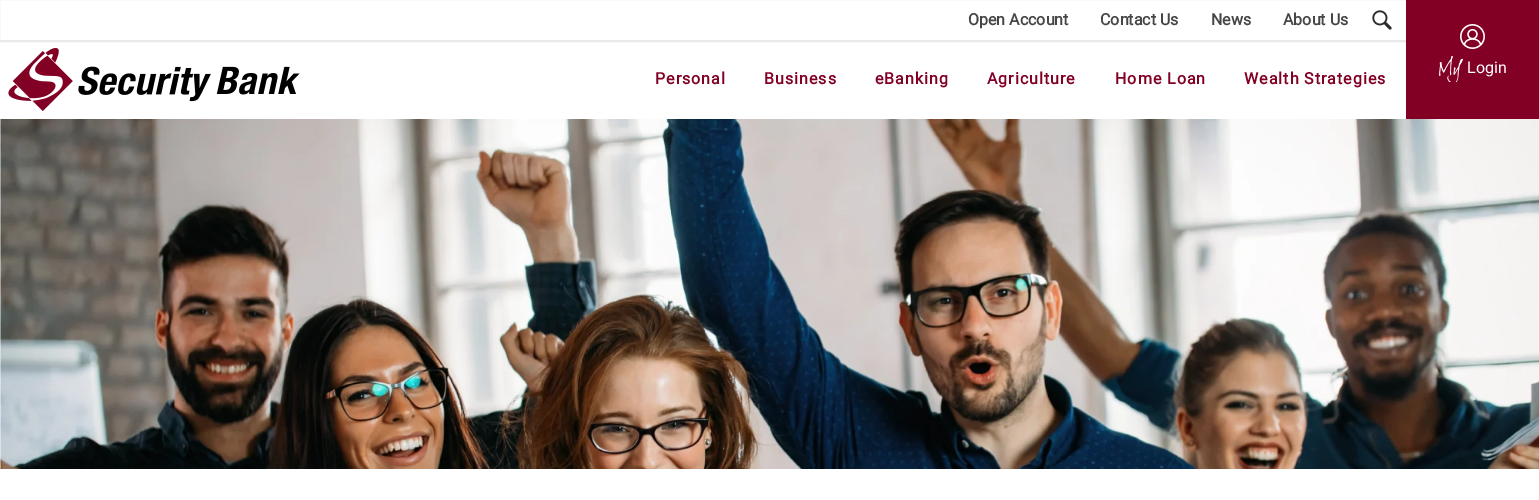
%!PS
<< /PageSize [1539 500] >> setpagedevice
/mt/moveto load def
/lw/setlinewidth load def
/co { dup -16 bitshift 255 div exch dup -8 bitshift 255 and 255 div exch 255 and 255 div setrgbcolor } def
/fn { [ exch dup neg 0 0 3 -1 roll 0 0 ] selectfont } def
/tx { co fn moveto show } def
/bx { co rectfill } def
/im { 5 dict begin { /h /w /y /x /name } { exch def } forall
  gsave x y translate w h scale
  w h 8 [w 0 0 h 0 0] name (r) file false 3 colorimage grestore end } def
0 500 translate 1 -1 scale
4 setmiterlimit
0 0 1539 500 16#FFFFFF bx
16#E9E9E9 co
2 lw
-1 -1 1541 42 rectstroke
(media/1.raw) 1372 10 20 20 im
(media/2.raw) 8 48 292 63 im
1406 0 133 119 16#820024 bx
(media/3.raw) 1460 24 25 25 im
(media/4.raw) 1439 56 24 26 im
(media/5.raw) 0 119 1539 350 im
(Open Account) 968 25 /Roboto-Bold 16 16#464646 tx
(Contact Us) 1100 25 /Roboto-Bold 16 16#464646 tx
(News) 1211 25 /Roboto-Bold 16 16#464646 tx
(About Us) 1283 25 /Roboto-Bold 16 16#464646 tx
(Login) 1467 73 /Roboto-Regular 16 16#FFFFFF tx
/Roboto-Bold 16 fn
16#820024 co
655 84 mt 1 0 (Personal) ashow
764 84 mt 1 0 (Business) ashow
875 84 mt 1 0 (eBanking) ashow
987 84 mt 1 0 (Agriculture) ashow
1115 84 mt 1 0 (Home Loan) ashow
1244 84 mt 1 0 (Wealth Strategies) ashow
showpage
